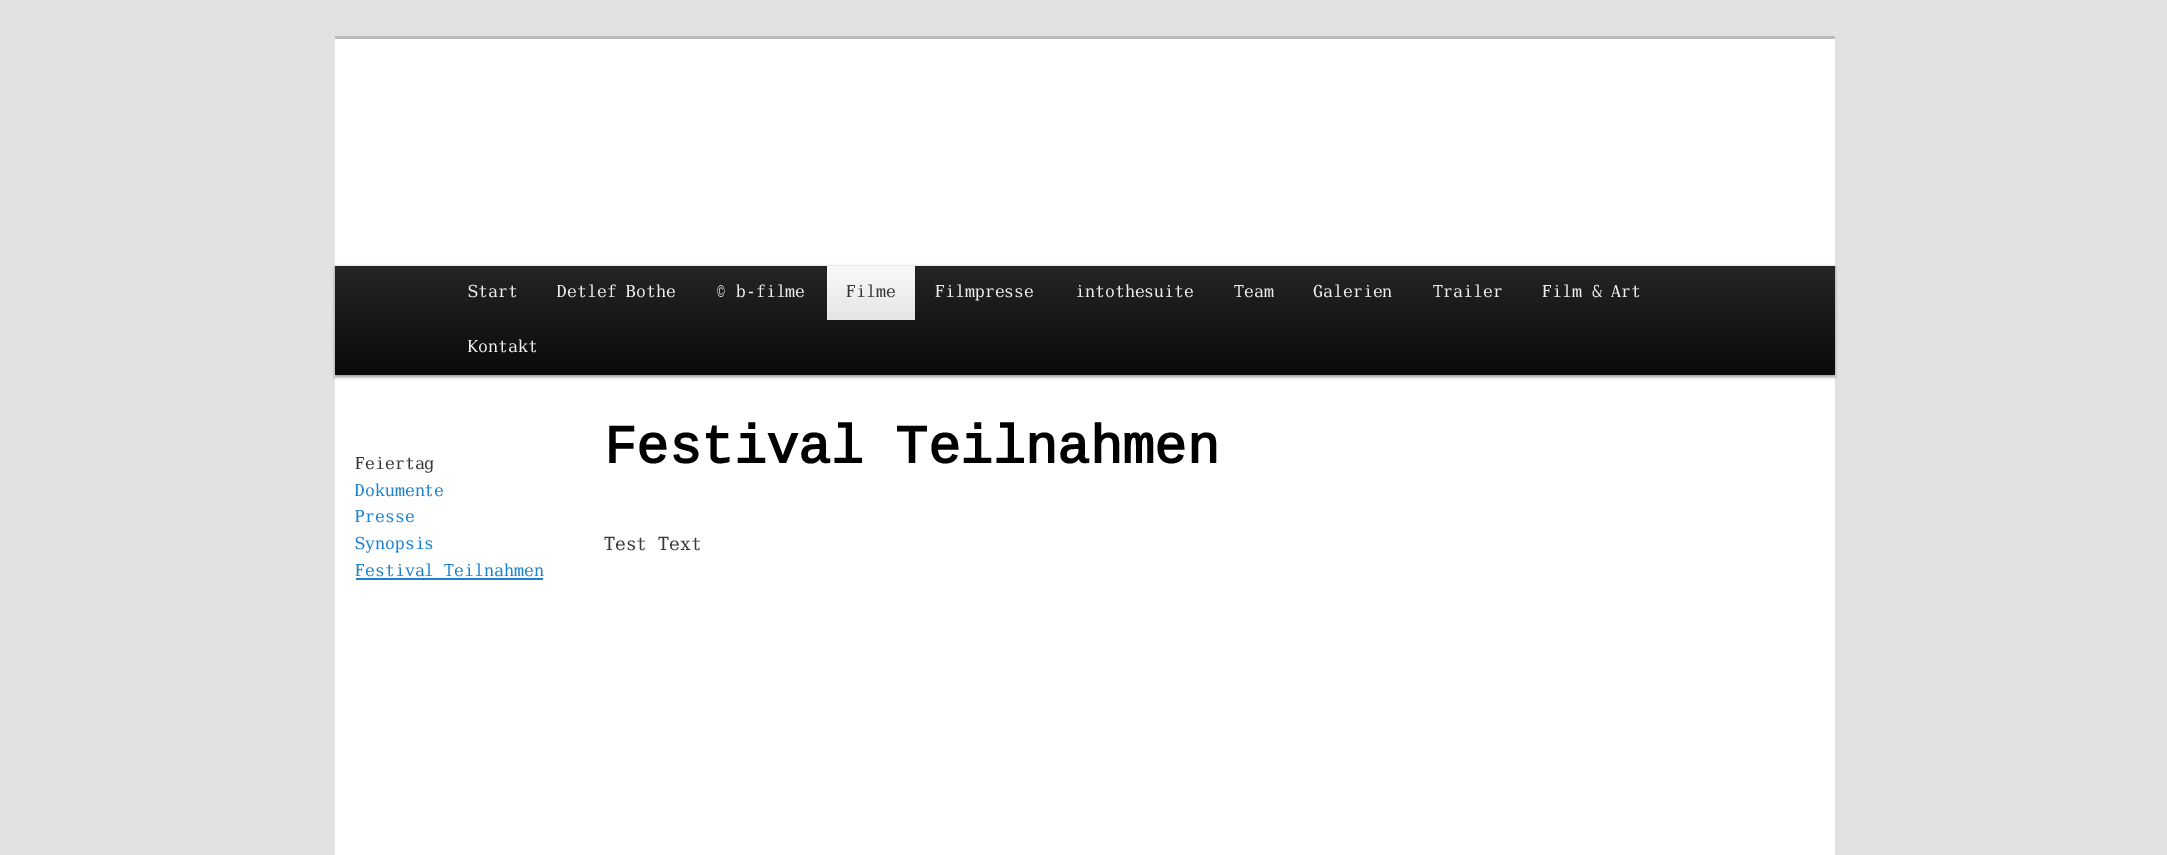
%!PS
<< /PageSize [2167 855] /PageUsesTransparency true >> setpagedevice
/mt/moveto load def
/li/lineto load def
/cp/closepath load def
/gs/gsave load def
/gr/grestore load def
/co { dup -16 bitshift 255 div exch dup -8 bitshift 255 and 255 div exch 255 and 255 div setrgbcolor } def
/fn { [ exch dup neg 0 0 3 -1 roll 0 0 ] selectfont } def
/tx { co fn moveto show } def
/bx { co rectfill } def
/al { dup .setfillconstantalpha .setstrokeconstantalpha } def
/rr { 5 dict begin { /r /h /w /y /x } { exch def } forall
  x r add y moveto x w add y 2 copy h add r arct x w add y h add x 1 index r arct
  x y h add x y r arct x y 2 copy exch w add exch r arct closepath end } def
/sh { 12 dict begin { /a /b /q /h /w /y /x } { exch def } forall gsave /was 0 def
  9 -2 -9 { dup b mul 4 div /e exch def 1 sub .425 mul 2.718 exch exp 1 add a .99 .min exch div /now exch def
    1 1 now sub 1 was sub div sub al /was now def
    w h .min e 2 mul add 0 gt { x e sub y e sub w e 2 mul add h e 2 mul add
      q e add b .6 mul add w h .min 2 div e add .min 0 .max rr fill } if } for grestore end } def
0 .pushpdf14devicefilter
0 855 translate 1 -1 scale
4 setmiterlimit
0 0 2167 855 16#E2E2E2 bx
335 39 1500 816 16#FFFFFF bx
335 36 1500 3 16#BBBBBB bx
16#000000 co
335 267 1500 110 0 1.5 .4 sh
gs 335 266 mt 1835 266 li 1835 375 li 335 375 li cp clip newpath
<< /ShadingType 2 /ColorSpace /DeviceRGB /Coords [1085 265 1085 375] /Extend [true true] /Function << /FunctionType 2 /Domain [0 1] /C0 [.145 .145 .145] /C1 [.039 .039 .039] /N 1 >> >> shfill gr
gs 827 266 mt 915 266 li 915 320 li 827 320 li cp clip newpath
<< /ShadingType 2 /ColorSpace /DeviceRGB /Coords [871 266 871 320] /Extend [true true] /Function << /FunctionType 2 /Domain [0 1] /C0 [.976 .976 .976] /C1 [.898 .898 .898] /N 1 >> >> shfill gr
356 578 187 2 16#1982D1 bx
(Start) 468 297 /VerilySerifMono-Regular 16.5 16#EEEEEE tx
(Detlef Bothe) 557 297 /VerilySerifMono-Regular 16.5 16#EEEEEE tx
(© b-filme) 716 297 /VerilySerifMono-Regular 16.5 16#EEEEEE tx
(Filme) 846 297 /VerilySerifMono-Regular 16.5 16#373737 tx
(Filmpresse) 935 297 /VerilySerifMono-Regular 16.5 16#EEEEEE tx
(intothesuite) 1075 297 /VerilySerifMono-Regular 16.5 16#EEEEEE tx
(Team) 1234 297 /VerilySerifMono-Regular 16.5 16#EEEEEE tx
(Galerien) 1313 297 /VerilySerifMono-Regular 16.5 16#EEEEEE tx
(Trailer) 1433 297 /VerilySerifMono-Regular 16.5 16#EEEEEE tx
(Film & Art) 1542 297 /VerilySerifMono-Regular 16.5 16#EEEEEE tx
(Kontakt) 468 352 /VerilySerifMono-Regular 16.5 16#EEEEEE tx
(Feiertag) 355 469 /VerilySerifMono-Regular 16.5 16#373737 tx
(Dokumente) 355 496 /VerilySerifMono-Regular 16.5 16#1982D1 tx
(Presse) 355 522 /VerilySerifMono-Regular 16.5 16#1982D1 tx
(Synopsis) 355 549 /VerilySerifMono-Regular 16.5 16#1982D1 tx
(Festival Teilnahmen) 355 576 /VerilySerifMono-Regular 16.5 16#1982D1 tx
(Festival Teilnahmen) 604 463 /LiberationMono-Bold 54 16#000000 tx
(Test Text) 604 550 /VerilySerifMono-Regular 18 16#373737 tx
.poppdf14devicefilter showpage
